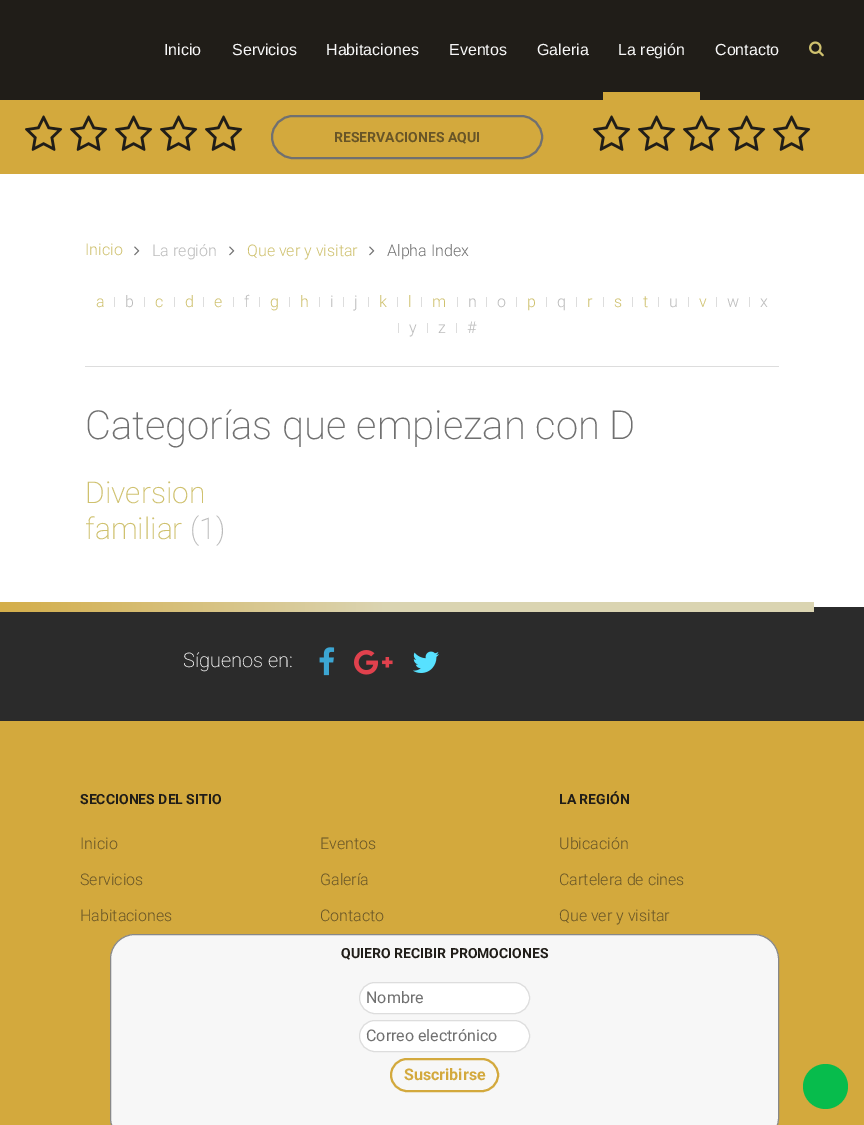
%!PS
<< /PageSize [864 1125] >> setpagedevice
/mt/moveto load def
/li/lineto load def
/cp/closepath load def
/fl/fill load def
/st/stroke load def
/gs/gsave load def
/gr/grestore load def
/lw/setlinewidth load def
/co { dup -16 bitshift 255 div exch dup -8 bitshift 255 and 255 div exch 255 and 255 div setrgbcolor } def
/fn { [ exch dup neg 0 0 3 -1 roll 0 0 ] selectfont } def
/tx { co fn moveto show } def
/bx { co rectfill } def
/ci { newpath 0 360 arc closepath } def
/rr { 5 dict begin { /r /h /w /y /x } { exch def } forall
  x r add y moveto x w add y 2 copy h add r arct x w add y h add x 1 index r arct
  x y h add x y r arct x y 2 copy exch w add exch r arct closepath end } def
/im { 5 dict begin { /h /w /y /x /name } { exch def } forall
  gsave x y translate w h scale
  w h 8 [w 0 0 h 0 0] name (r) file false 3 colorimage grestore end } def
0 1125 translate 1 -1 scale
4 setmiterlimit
0 0 864 1125 16#FFFFFF bx
0 0 864 100 16#201D18 bx
603 92 97 8 16#D3A93D bx
(media/1.raw) 809 41 15 16 im
0 100 864 74 16#D3A93D bx
(media/2.raw) 25 115 38 36 im
(media/2.raw) 70 115 38 36 im
(media/2.raw) 115 115 38 36 im
(media/2.raw) 160 115 38 36 im
(media/2.raw) 205 115 38 36 im
16#707070 co
2 lw
272 116 270 42 21 rr st
(media/2.raw) 593 115 38 36 im
(media/2.raw) 638 115 38 36 im
(media/2.raw) 683 115 38 36 im
(media/2.raw) 728 115 38 36 im
(media/2.raw) 773 115 38 36 im
(media/3.raw) 134 246 6 10 im
(media/3.raw) 229 246 6 10 im
(media/3.raw) 369 246 6 10 im
114 297 1 10 16#DDDDDD bx
144 297 1 10 16#DDDDDD bx
174 297 1 10 16#DDDDDD bx
203 297 1 10 16#DDDDDD bx
233 297 1 10 16#DDDDDD bx
259 297 1 10 16#DDDDDD bx
289 297 1 10 16#DDDDDD bx
319 297 1 10 16#DDDDDD bx
343 297 1 10 16#DDDDDD bx
368 297 1 10 16#DDDDDD bx
397 297 1 10 16#DDDDDD bx
421 297 1 10 16#DDDDDD bx
457 297 1 10 16#DDDDDD bx
486 297 1 10 16#DDDDDD bx
516 297 1 10 16#DDDDDD bx
546 297 1 10 16#DDDDDD bx
576 297 1 10 16#DDDDDD bx
603 297 1 10 16#DDDDDD bx
632 297 1 10 16#DDDDDD bx
658 297 1 10 16#DDDDDD bx
688 297 1 10 16#DDDDDD bx
716 297 1 10 16#DDDDDD bx
749 297 1 10 16#DDDDDD bx
398 323 1 10 16#DDDDDD bx
427 323 1 10 16#DDDDDD bx
456 323 1 10 16#DDDDDD bx
85 366 694 1 16#DDDDDD bx
0 607 864 114 16#2B2B2B bx
gs 0 602 mt 814 602 li 814 612 li 0 612 li cp clip newpath
<< /ShadingType 2 /ColorSpace /DeviceRGB /Coords [-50 607 814 607] /Extend [true true] /Function << /FunctionType 3 /Domain [0 1] /Functions [<< /FunctionType 2 /Domain [0 1] /C0 [.827 .663 .239] /C1 [.855 .831 .694] /N 1 >> << /FunctionType 2 /Domain [0 1] /C0 [.855 .831 .694] /C1 [.855 .831 .694] /N 1 >>] /Bounds [.5] /Encode [0 1 0 1] >> >> shfill gr
(media/4.raw) 319 647 16 29 im
(media/5.raw) 354 650 39 25 im
(media/6.raw) 413 651 26 22 im
0 721 864 404 16#D3A93D bx
16#F7F7F7 co
110.5 934.5 668 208 24.5 rr gs fl gr
16#888888 co
1 lw
st
16#FFFFFF co
359.5 982.5 170 31 15.5 rr gs fl gr
16#DDDDDD co
st
16#FFFFFF co
359.5 1020.5 170 31 15.5 rr gs fl gr
16#DDDDDD co
st
16#D3A93D co
2 lw
391 1059 107 32 16 rr st
16#07BC4C co
825.5 1086.5 22.5 ci fl
(Inicio) 164 55 /LiberationSans-Regular 16 16#F7F7F7 tx
(Servicios) 232 55 /LiberationSans-Regular 16 16#F7F7F7 tx
(Habitaciones) 326 55 /LiberationSans-Regular 16 16#F7F7F7 tx
(Eventos) 449 55 /LiberationSans-Regular 16 16#F7F7F7 tx
(Galeria) 537 55 /LiberationSans-Regular 16 16#F7F7F7 tx
(La región) 618 55 /LiberationSans-Regular 16 16#F7F7F7 tx
(Contacto) 715 55 /LiberationSans-Regular 16 16#F7F7F7 tx
(RESERVACIONES AQUI) 334 142 /Roboto-Bold 14 16#685527 tx
(Inicio) 85 255 /Roboto-Light 16 16#CFC16E tx
(La región) 152 256 /Roboto-Light 16 16#BBBBBB tx
(Que ver y visitar) 247 256 /Roboto-Light 16 16#CFC16E tx
(Alpha Index) 387 256 /Roboto-Light 16 16#707070 tx
(a) 96 307 /Roboto-Light 16 16#CFC16E tx
(b) 125 307 /Roboto-Light 16 16#BBBBBB tx
(c) 155 307 /Roboto-Light 16 16#CFC16E tx
(d) 185 307 /Roboto-Light 16 16#CFC16E tx
(e) 214 307 /Roboto-Light 16 16#CFC16E tx
(f) 244 307 /Roboto-Light 16 16#BBBBBB tx
(g) 270 307 /Roboto-Light 16 16#CFC16E tx
(h) 300 307 /Roboto-Light 16 16#CFC16E tx
(i) 330 307 /Roboto-Light 16 16#BBBBBB tx
(j) 354 307 /Roboto-Light 16 16#BBBBBB tx
(k) 379 307 /Roboto-Light 16 16#CFC16E tx
(l) 408 307 /Roboto-Light 16 16#CFC16E tx
(m) 432 307 /Roboto-Light 16 16#CFC16E tx
(n) 468 307 /Roboto-Light 16 16#BBBBBB tx
(o) 497 307 /Roboto-Light 16 16#BBBBBB tx
(p) 527 307 /Roboto-Light 16 16#CFC16E tx
(q) 557 307 /Roboto-Light 16 16#BBBBBB tx
(r) 587 307 /Roboto-Light 16 16#CFC16E tx
(s) 614 307 /Roboto-Light 16 16#CFC16E tx
(t) 643 307 /Roboto-Light 16 16#CFC16E tx
(u) 669 307 /Roboto-Light 16 16#BBBBBB tx
(v) 699 307 /Roboto-Light 16 16#CFC16E tx
(w) 727 307 /Roboto-Light 16 16#BBBBBB tx
(x) 760 307 /Roboto-Light 16 16#BBBBBB tx
(y) 409 333 /Roboto-Light 16 16#BBBBBB tx
(z) 438 333 /Roboto-Light 16 16#BBBBBB tx
(#) 467 333 /Roboto-Light 16 16#BBBBBB tx
(Categorías que empiezan con D) 85 439 /Roboto-ExtraLight 40 16#707070 tx
(Diversion) 85 503 /Roboto-ExtraLight 30 16#CFC16E tx
(familiar) 85 539 /Roboto-ExtraLight 30 16#CFC16E tx
(\(1\)) 190 539 /Roboto-ExtraLight 30 16#BBBBBB tx
(Síguenos en:) 183 667 /Roboto-ExtraLight 20 16#FFFFFF tx
(SECCIONES DEL SITIO) 80 804 /Roboto-Bold 14 16#201D18 tx
(Inicio) 80 849 /Roboto-Light 16 16#685527 tx
(Servicios) 80 885 /Roboto-Light 16 16#685527 tx
(Habitaciones) 80 921 /Roboto-Light 16 16#685527 tx
(Eventos) 320 849 /Roboto-Light 16 16#685527 tx
(Galería) 320 885 /Roboto-Light 16 16#685527 tx
(Contacto) 320 921 /Roboto-Light 16 16#685527 tx
(LA REGIÓN) 559 804 /Roboto-Bold 14 16#201D18 tx
(Ubicación) 559 849 /Roboto-Light 16 16#685527 tx
(Cartelera de cines) 559 885 /Roboto-Light 16 16#685527 tx
(Que ver y visitar) 559 921 /Roboto-Light 16 16#685527 tx
(QUIERO RECIBIR PROMOCIONES) 341 958 /Roboto-Bold 14 16#201D18 tx
(Nombre) 366 1003 /Roboto-Regular 16 16#707070 tx
(Correo electrónico) 366 1041 /Roboto-Regular 16 16#707070 tx
(Suscribirse) 404 1080 /Roboto-Bold 16 16#D3A93D tx
showpage
